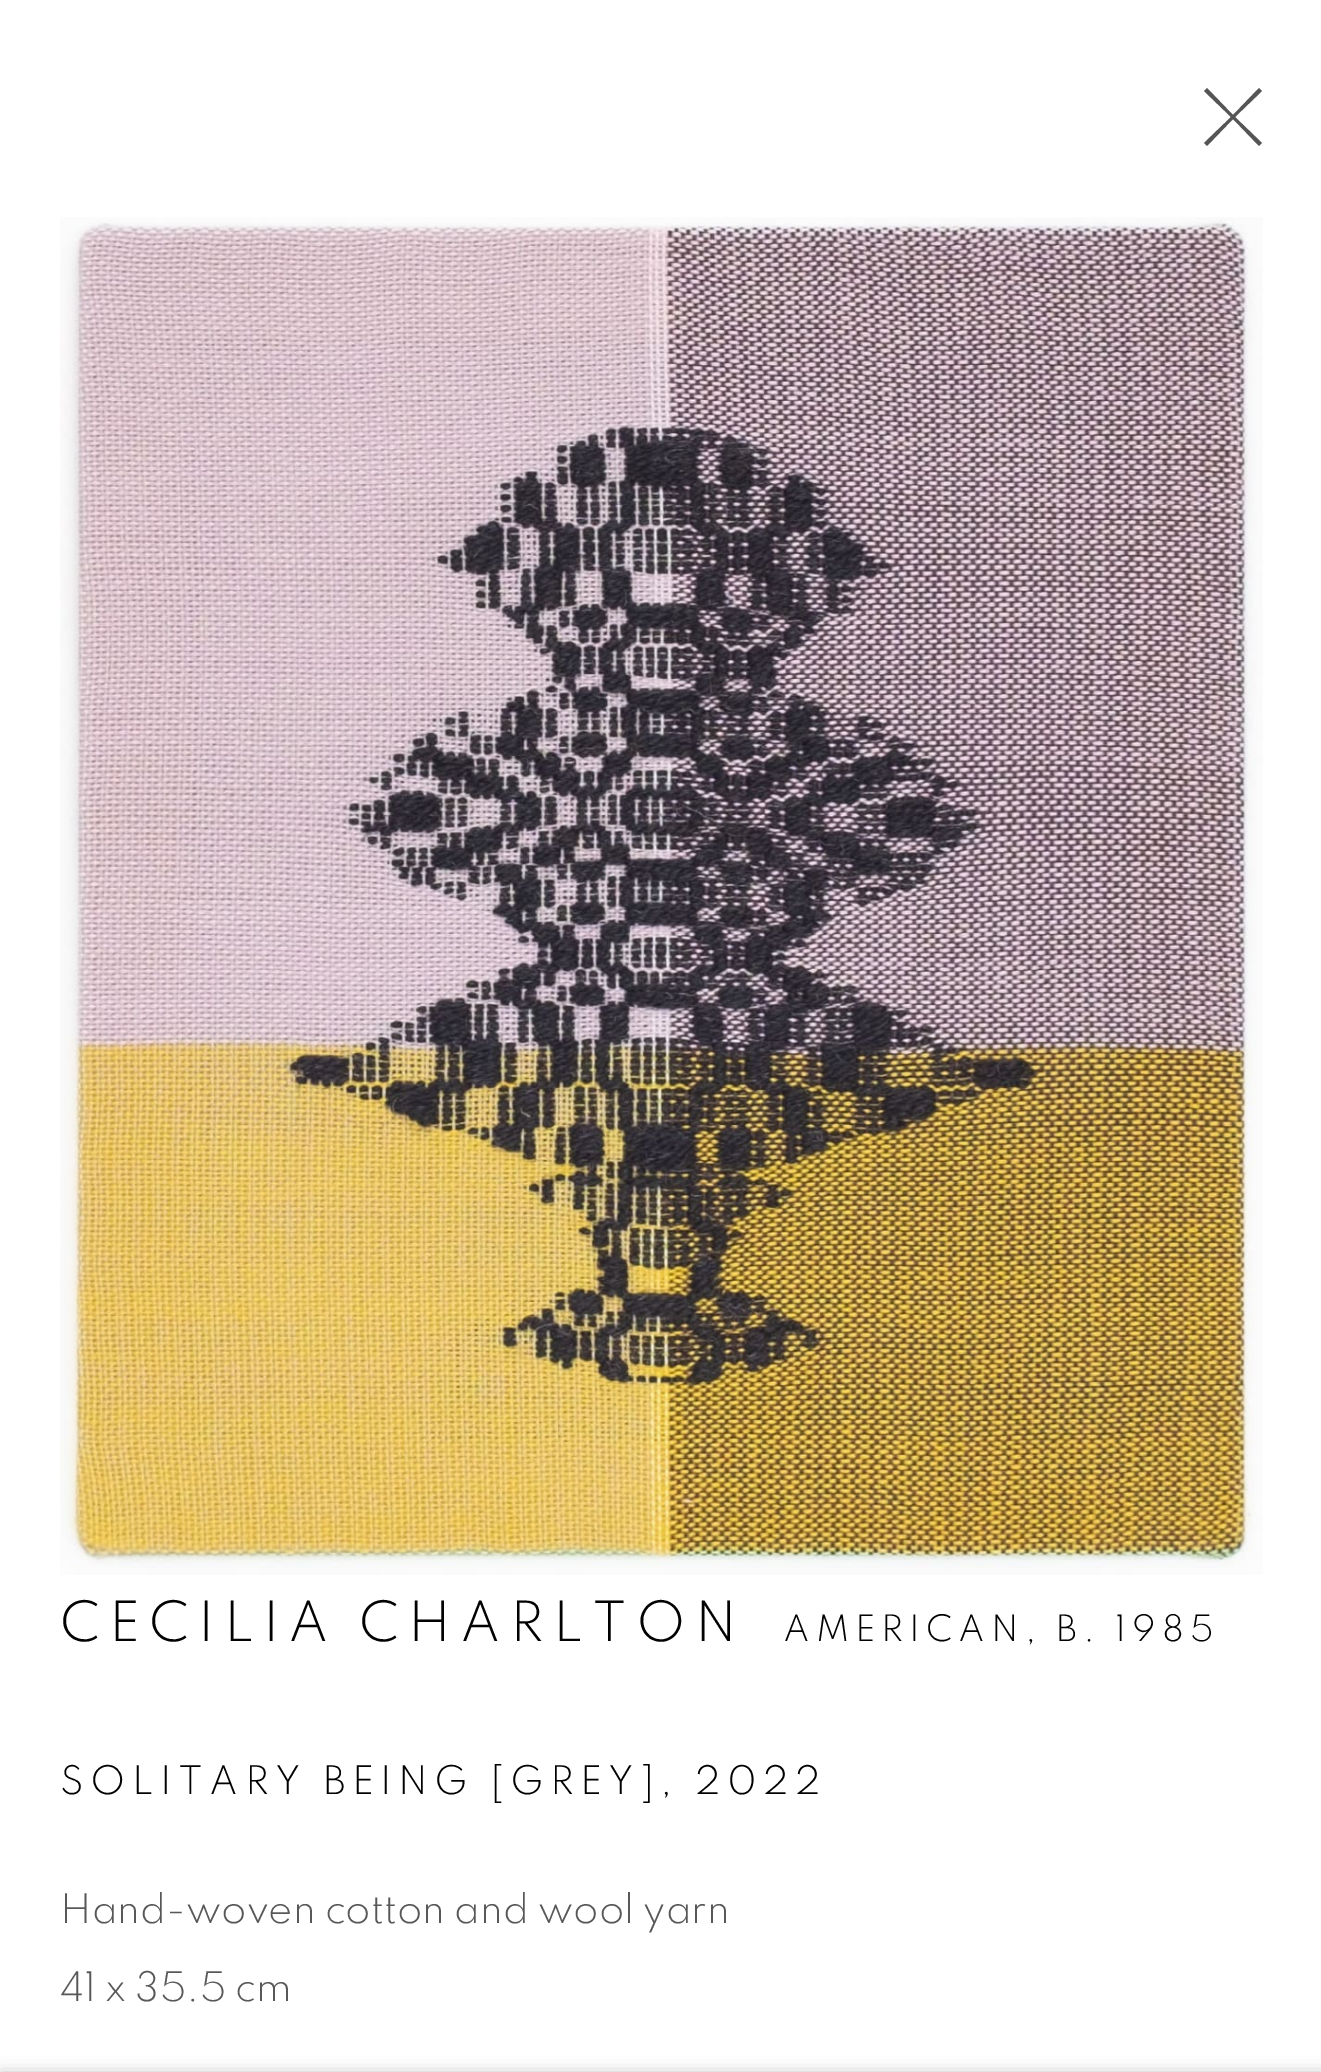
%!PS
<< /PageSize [1321 2072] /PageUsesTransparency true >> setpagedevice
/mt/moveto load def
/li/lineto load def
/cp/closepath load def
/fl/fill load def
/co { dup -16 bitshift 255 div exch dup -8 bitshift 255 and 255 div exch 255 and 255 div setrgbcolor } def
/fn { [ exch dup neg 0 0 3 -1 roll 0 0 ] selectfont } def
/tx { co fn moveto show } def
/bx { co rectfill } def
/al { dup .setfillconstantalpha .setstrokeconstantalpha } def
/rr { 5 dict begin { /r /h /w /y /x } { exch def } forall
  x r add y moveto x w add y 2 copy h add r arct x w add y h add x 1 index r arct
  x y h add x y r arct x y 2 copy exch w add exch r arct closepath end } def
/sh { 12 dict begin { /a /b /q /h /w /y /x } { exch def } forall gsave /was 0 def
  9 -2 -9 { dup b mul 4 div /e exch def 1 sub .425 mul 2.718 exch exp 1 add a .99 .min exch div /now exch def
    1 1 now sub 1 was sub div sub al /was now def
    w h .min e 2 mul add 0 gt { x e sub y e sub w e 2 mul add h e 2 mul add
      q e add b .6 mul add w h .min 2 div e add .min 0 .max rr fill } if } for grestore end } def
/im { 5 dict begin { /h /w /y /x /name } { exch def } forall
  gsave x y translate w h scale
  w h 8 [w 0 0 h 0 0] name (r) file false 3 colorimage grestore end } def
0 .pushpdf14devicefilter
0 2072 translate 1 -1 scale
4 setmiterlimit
0 0 1321 2072 16#FFFFFF bx
16#555555 co
1262 91 mt 1259 88 li 1233 115 li 1207 88 li 1204 91 li 1231 117 li 1204 143 li 1207 146 li 1233 119 li 1259 146 li 1262 143 li 1235 117 li cp fl
(media/1.raw) 60 217 1203 1358 im
16#000000 co
0 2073 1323 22 0 7.5 .23 sh
/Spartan-Light 57 fn
16#010101 co
60 1641 mt 9.1 0 (CECILIA CHARLTON) ashow
/Spartan-Light 37.5 fn
783 1641 mt 6 0 (AMERICAN, B. 1985) ashow
/Spartan-Light 40.5 fn
60 1794 mt 6.5 0 (SOLITARY BEING [GREY], 2022) ashow
(Hand-woven cotton and wool yarn) 60 1923 /Spartan-Light 42 16#585858 tx
(41 x 35.5 cm) 60 2001 /Spartan-Light 42 16#585858 tx
.poppdf14devicefilter showpage
